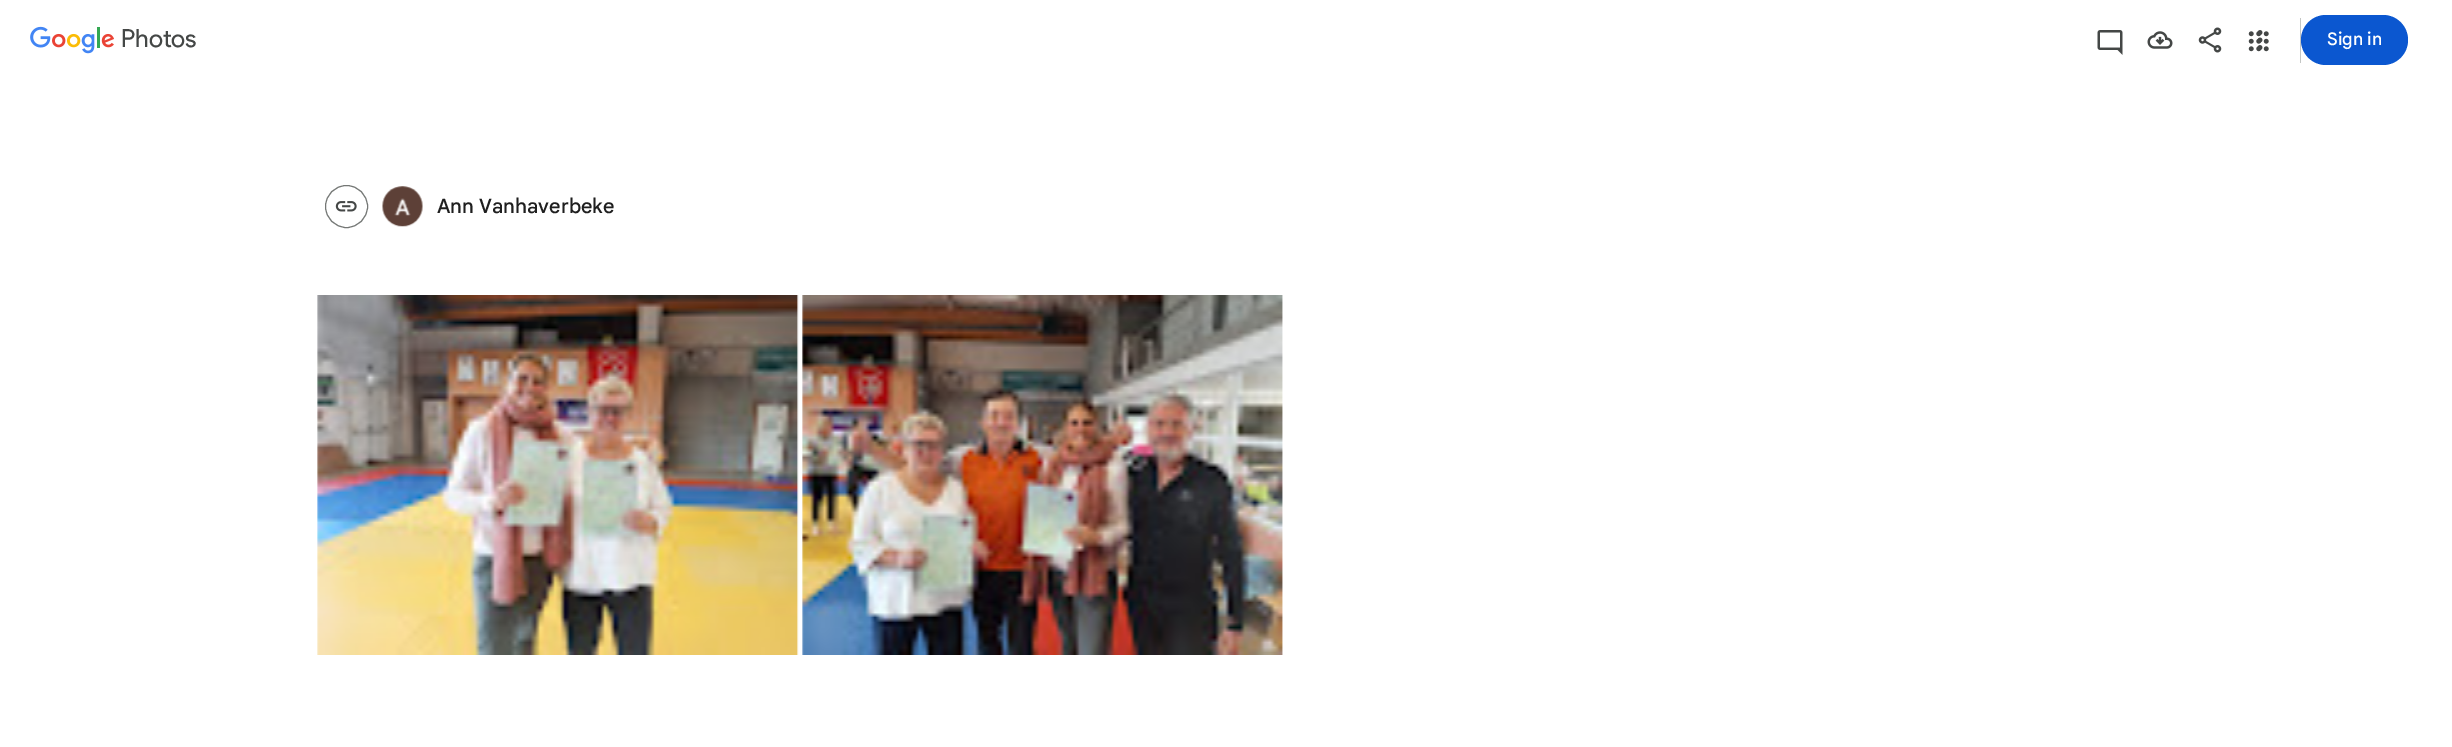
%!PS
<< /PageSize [2452 747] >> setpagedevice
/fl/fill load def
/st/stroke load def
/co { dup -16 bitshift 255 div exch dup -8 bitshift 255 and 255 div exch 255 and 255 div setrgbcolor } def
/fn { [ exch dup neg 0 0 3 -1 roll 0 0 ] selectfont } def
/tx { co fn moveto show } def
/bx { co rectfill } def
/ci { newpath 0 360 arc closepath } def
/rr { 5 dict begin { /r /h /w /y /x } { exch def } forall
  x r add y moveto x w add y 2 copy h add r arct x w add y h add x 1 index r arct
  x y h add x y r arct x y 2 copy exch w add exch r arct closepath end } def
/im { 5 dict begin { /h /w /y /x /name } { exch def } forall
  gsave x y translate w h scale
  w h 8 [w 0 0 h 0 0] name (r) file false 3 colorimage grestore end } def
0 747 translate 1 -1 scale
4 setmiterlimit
0 0 2452 747 16#FFFFFF bx
(media/1.raw) 30 26 84 28 im
(media/2.raw) 2097 30 26 25 im
(media/3.raw) 2147 31 26 18 im
(media/4.raw) 2198 27 24 26 im
(media/5.raw) 2257 30 6 20 im
2300 18 1 45 16#C4C7C5 bx
16#747775 co
346.5 206.5 21 ci st
(media/6.raw) 335 201 22 11 im
(media/7.raw) 382 186 41 41 im
(media/8.raw) 317 295 482 360 im
(media/9.raw) 802 295 481 360 im
(media/10.raw) 2248 31 21 21 im
16#0B57D0 co
2301 15 107 50 25 rr fl
(Photos) 121 47 /ProductSans-Regular 25 16#444746 tx
(Ann Vanhaverbeke) 437 213 /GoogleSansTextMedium-Medium 20 16#1F1F1F tx
(Sign in) 2327 45 /GoogleSansTextMedium-Medium 17.5 16#FFFFFF tx
showpage
